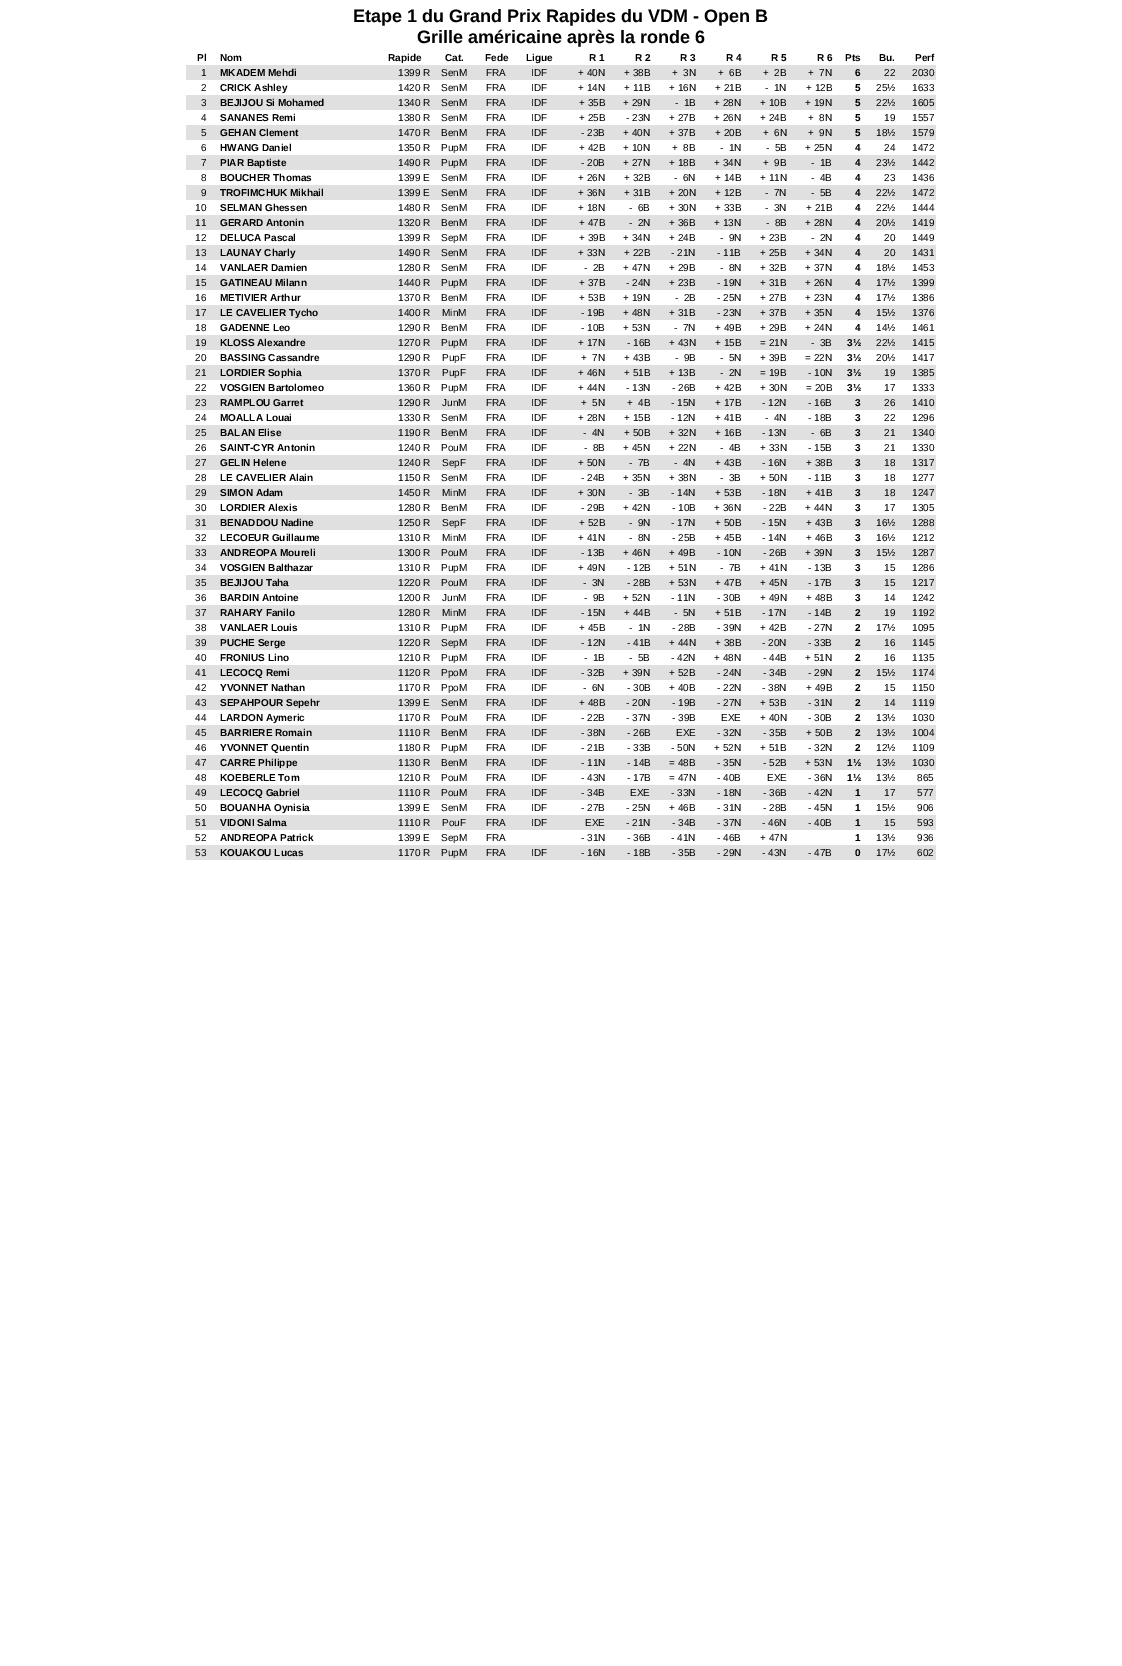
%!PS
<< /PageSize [1122 1666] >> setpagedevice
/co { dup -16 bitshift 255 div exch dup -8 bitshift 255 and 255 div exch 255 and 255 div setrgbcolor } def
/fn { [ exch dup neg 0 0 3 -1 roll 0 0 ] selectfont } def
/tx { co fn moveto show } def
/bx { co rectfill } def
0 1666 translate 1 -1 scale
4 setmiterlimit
0 0 1122 1666 16#FFFFFF bx
186 65 750 15 16#E0E0E0 bx
186 95 750 15 16#E0E0E0 bx
186 125 750 15 16#E0E0E0 bx
186 155 750 15 16#E0E0E0 bx
186 185 750 15 16#E0E0E0 bx
186 215 750 15 16#E0E0E0 bx
186 245 750 15 16#E0E0E0 bx
186 275 750 15 16#E0E0E0 bx
186 305 750 15 16#E0E0E0 bx
186 335 750 15 16#E0E0E0 bx
186 365 750 15 16#E0E0E0 bx
186 395 750 15 16#E0E0E0 bx
186 425 750 15 16#E0E0E0 bx
186 455 750 15 16#E0E0E0 bx
186 485 750 15 16#E0E0E0 bx
186 515 750 15 16#E0E0E0 bx
186 545 750 15 16#E0E0E0 bx
186 575 750 15 16#E0E0E0 bx
186 605 750 15 16#E0E0E0 bx
186 635 750 15 16#E0E0E0 bx
186 665 750 15 16#E0E0E0 bx
186 695 750 15 16#E0E0E0 bx
186 725 750 15 16#E0E0E0 bx
186 755 750 15 16#E0E0E0 bx
186 785 750 15 16#E0E0E0 bx
186 815 750 15 16#E0E0E0 bx
186 845 750 15 16#E0E0E0 bx
(Etape 1 du Grand Prix Rapides du VDM - Open B) 353 22 /LiberationSans-Bold 18 16#000000 tx
(Grille américaine après la ronde 6) 417 43 /LiberationSans-Bold 18 16#000000 tx
(Pl) 197 61 /LiberationSans-Bold 10 16#000000 tx
(Nom) 220 61 /LiberationSans-Bold 10 16#000000 tx
(Rapide) 388 61 /LiberationSans-Bold 10 16#000000 tx
(Cat.) 445 61 /LiberationSans-Bold 10 16#000000 tx
(Fede) 485 61 /LiberationSans-Bold 10 16#000000 tx
(Ligue) 526 61 /LiberationSans-Bold 10 16#000000 tx
(R 1) 589 61 /LiberationSans-Bold 10 16#000000 tx
(R 2) 635 61 /LiberationSans-Bold 10 16#000000 tx
(R 3) 680 61 /LiberationSans-Bold 10 16#000000 tx
(R 4) 726 61 /LiberationSans-Bold 10 16#000000 tx
(R 5) 771 61 /LiberationSans-Bold 10 16#000000 tx
(R 6) 817 61 /LiberationSans-Bold 10 16#000000 tx
(Pts) 845 61 /LiberationSans-Bold 10 16#000000 tx
(Bu.) 879 61 /LiberationSans-Bold 10 16#000000 tx
(Perf) 915 61 /LiberationSans-Bold 10 16#000000 tx
(1) 201 76 /LiberationSans-Regular 10 16#000000 tx
(MKADEM Mehdi) 220 76 /LiberationSans-Bold 10 16#000000 tx
(1399 R) 398 76 /LiberationSans-Regular 10 16#000000 tx
(SenM) 441 76 /LiberationSans-Regular 10 16#000000 tx
(FRA) 486 76 /LiberationSans-Regular 10 16#000000 tx
(IDF) 531 76 /LiberationSans-Regular 10 16#000000 tx
(+ 40N) 578 76 /LiberationSans-Regular 10 16#000000 tx
(+ 38B) 624 76 /LiberationSans-Regular 10 16#000000 tx
(+  3N) 672 76 /LiberationSans-Regular 10 16#000000 tx
(+  6B) 718 76 /LiberationSans-Regular 10 16#000000 tx
(+  2B) 763 76 /LiberationSans-Regular 10 16#000000 tx
(+  7N) 808 76 /LiberationSans-Regular 10 16#000000 tx
(6) 855 76 /LiberationSans-Bold 10 16#000000 tx
(22) 884 76 /LiberationSans-Regular 10 16#000000 tx
(2030) 912 76 /LiberationSans-Regular 10 16#000000 tx
(2) 201 91 /LiberationSans-Regular 10 16#000000 tx
(CRICK Ashley) 220 91 /LiberationSans-Bold 10 16#000000 tx
(1420 R) 398 91 /LiberationSans-Regular 10 16#000000 tx
(SenM) 441 91 /LiberationSans-Regular 10 16#000000 tx
(FRA) 486 91 /LiberationSans-Regular 10 16#000000 tx
(IDF) 531 91 /LiberationSans-Regular 10 16#000000 tx
(+ 14N) 578 91 /LiberationSans-Regular 10 16#000000 tx
(+ 11B) 624 91 /LiberationSans-Regular 10 16#000000 tx
(+ 16N) 669 91 /LiberationSans-Regular 10 16#000000 tx
(+ 21B) 715 91 /LiberationSans-Regular 10 16#000000 tx
(-  1N) 765 91 /LiberationSans-Regular 10 16#000000 tx
(+ 12B) 806 91 /LiberationSans-Regular 10 16#000000 tx
(5) 855 91 /LiberationSans-Bold 10 16#000000 tx
(25½) 876 91 /LiberationSans-Regular 10 16#000000 tx
(1633) 912 91 /LiberationSans-Regular 10 16#000000 tx
(3) 201 106 /LiberationSans-Regular 10 16#000000 tx
(BEJIJOU Si Mohamed) 220 106 /LiberationSans-Bold 10 16#000000 tx
(1340 R) 398 106 /LiberationSans-Regular 10 16#000000 tx
(SenM) 441 106 /LiberationSans-Regular 10 16#000000 tx
(FRA) 486 106 /LiberationSans-Regular 10 16#000000 tx
(IDF) 531 106 /LiberationSans-Regular 10 16#000000 tx
(+ 35B) 579 106 /LiberationSans-Regular 10 16#000000 tx
(+ 29N) 623 106 /LiberationSans-Regular 10 16#000000 tx
(-  1B) 675 106 /LiberationSans-Regular 10 16#000000 tx
(+ 28N) 714 106 /LiberationSans-Regular 10 16#000000 tx
(+ 10B) 760 106 /LiberationSans-Regular 10 16#000000 tx
(+ 19N) 805 106 /LiberationSans-Regular 10 16#000000 tx
(5) 855 106 /LiberationSans-Bold 10 16#000000 tx
(22½) 876 106 /LiberationSans-Regular 10 16#000000 tx
(1605) 912 106 /LiberationSans-Regular 10 16#000000 tx
(4) 201 121 /LiberationSans-Regular 10 16#000000 tx
(SANANES Remi) 220 121 /LiberationSans-Bold 10 16#000000 tx
(1380 R) 398 121 /LiberationSans-Regular 10 16#000000 tx
(SenM) 441 121 /LiberationSans-Regular 10 16#000000 tx
(FRA) 486 121 /LiberationSans-Regular 10 16#000000 tx
(IDF) 531 121 /LiberationSans-Regular 10 16#000000 tx
(+ 25B) 579 121 /LiberationSans-Regular 10 16#000000 tx
(- 23N) 626 121 /LiberationSans-Regular 10 16#000000 tx
(+ 27B) 669 121 /LiberationSans-Regular 10 16#000000 tx
(+ 26N) 714 121 /LiberationSans-Regular 10 16#000000 tx
(+ 24B) 760 121 /LiberationSans-Regular 10 16#000000 tx
(+  8N) 808 121 /LiberationSans-Regular 10 16#000000 tx
(5) 855 121 /LiberationSans-Bold 10 16#000000 tx
(19) 884 121 /LiberationSans-Regular 10 16#000000 tx
(1557) 912 121 /LiberationSans-Regular 10 16#000000 tx
(5) 201 136 /LiberationSans-Regular 10 16#000000 tx
(GEHAN Clement) 220 136 /LiberationSans-Bold 10 16#000000 tx
(1470 R) 398 136 /LiberationSans-Regular 10 16#000000 tx
(BenM) 441 136 /LiberationSans-Regular 10 16#000000 tx
(FRA) 486 136 /LiberationSans-Regular 10 16#000000 tx
(IDF) 531 136 /LiberationSans-Regular 10 16#000000 tx
(- 23B) 581 136 /LiberationSans-Regular 10 16#000000 tx
(+ 40N) 623 136 /LiberationSans-Regular 10 16#000000 tx
(+ 37B) 669 136 /LiberationSans-Regular 10 16#000000 tx
(+ 20B) 715 136 /LiberationSans-Regular 10 16#000000 tx
(+  6N) 763 136 /LiberationSans-Regular 10 16#000000 tx
(+  9N) 808 136 /LiberationSans-Regular 10 16#000000 tx
(5) 855 136 /LiberationSans-Bold 10 16#000000 tx
(18½) 876 136 /LiberationSans-Regular 10 16#000000 tx
(1579) 912 136 /LiberationSans-Regular 10 16#000000 tx
(6) 201 151 /LiberationSans-Regular 10 16#000000 tx
(HWANG Daniel) 220 151 /LiberationSans-Bold 10 16#000000 tx
(1350 R) 398 151 /LiberationSans-Regular 10 16#000000 tx
(PupM) 441 151 /LiberationSans-Regular 10 16#000000 tx
(FRA) 486 151 /LiberationSans-Regular 10 16#000000 tx
(IDF) 531 151 /LiberationSans-Regular 10 16#000000 tx
(+ 42B) 579 151 /LiberationSans-Regular 10 16#000000 tx
(+ 10N) 623 151 /LiberationSans-Regular 10 16#000000 tx
(+  8B) 672 151 /LiberationSans-Regular 10 16#000000 tx
(-  1N) 720 151 /LiberationSans-Regular 10 16#000000 tx
(-  5B) 766 151 /LiberationSans-Regular 10 16#000000 tx
(+ 25N) 805 151 /LiberationSans-Regular 10 16#000000 tx
(4) 855 151 /LiberationSans-Bold 10 16#000000 tx
(24) 884 151 /LiberationSans-Regular 10 16#000000 tx
(1472) 912 151 /LiberationSans-Regular 10 16#000000 tx
(7) 201 166 /LiberationSans-Regular 10 16#000000 tx
(PIAR Baptiste) 220 166 /LiberationSans-Bold 10 16#000000 tx
(1490 R) 398 166 /LiberationSans-Regular 10 16#000000 tx
(PupM) 441 166 /LiberationSans-Regular 10 16#000000 tx
(FRA) 486 166 /LiberationSans-Regular 10 16#000000 tx
(IDF) 531 166 /LiberationSans-Regular 10 16#000000 tx
(- 20B) 581 166 /LiberationSans-Regular 10 16#000000 tx
(+ 27N) 623 166 /LiberationSans-Regular 10 16#000000 tx
(+ 18B) 669 166 /LiberationSans-Regular 10 16#000000 tx
(+ 34N) 714 166 /LiberationSans-Regular 10 16#000000 tx
(+  9B) 763 166 /LiberationSans-Regular 10 16#000000 tx
(-  1B) 811 166 /LiberationSans-Regular 10 16#000000 tx
(4) 855 166 /LiberationSans-Bold 10 16#000000 tx
(23½) 876 166 /LiberationSans-Regular 10 16#000000 tx
(1442) 912 166 /LiberationSans-Regular 10 16#000000 tx
(8) 201 181 /LiberationSans-Regular 10 16#000000 tx
(BOUCHER Thomas) 220 181 /LiberationSans-Bold 10 16#000000 tx
(1399 E) 398 181 /LiberationSans-Regular 10 16#000000 tx
(SenM) 441 181 /LiberationSans-Regular 10 16#000000 tx
(FRA) 486 181 /LiberationSans-Regular 10 16#000000 tx
(IDF) 531 181 /LiberationSans-Regular 10 16#000000 tx
(+ 26N) 578 181 /LiberationSans-Regular 10 16#000000 tx
(+ 32B) 624 181 /LiberationSans-Regular 10 16#000000 tx
(-  6N) 674 181 /LiberationSans-Regular 10 16#000000 tx
(+ 14B) 715 181 /LiberationSans-Regular 10 16#000000 tx
(+ 11N) 760 181 /LiberationSans-Regular 10 16#000000 tx
(-  4B) 811 181 /LiberationSans-Regular 10 16#000000 tx
(4) 855 181 /LiberationSans-Bold 10 16#000000 tx
(23) 884 181 /LiberationSans-Regular 10 16#000000 tx
(1436) 912 181 /LiberationSans-Regular 10 16#000000 tx
(9) 201 196 /LiberationSans-Regular 10 16#000000 tx
(TROFIMCHUK Mikhail) 220 196 /LiberationSans-Bold 10 16#000000 tx
(1399 E) 398 196 /LiberationSans-Regular 10 16#000000 tx
(SenM) 441 196 /LiberationSans-Regular 10 16#000000 tx
(FRA) 486 196 /LiberationSans-Regular 10 16#000000 tx
(IDF) 531 196 /LiberationSans-Regular 10 16#000000 tx
(+ 36N) 578 196 /LiberationSans-Regular 10 16#000000 tx
(+ 31B) 624 196 /LiberationSans-Regular 10 16#000000 tx
(+ 20N) 669 196 /LiberationSans-Regular 10 16#000000 tx
(+ 12B) 715 196 /LiberationSans-Regular 10 16#000000 tx
(-  7N) 765 196 /LiberationSans-Regular 10 16#000000 tx
(-  5B) 811 196 /LiberationSans-Regular 10 16#000000 tx
(4) 855 196 /LiberationSans-Bold 10 16#000000 tx
(22½) 876 196 /LiberationSans-Regular 10 16#000000 tx
(1472) 912 196 /LiberationSans-Regular 10 16#000000 tx
(10) 195 211 /LiberationSans-Regular 10 16#000000 tx
(SELMAN Ghessen) 220 211 /LiberationSans-Bold 10 16#000000 tx
(1480 R) 398 211 /LiberationSans-Regular 10 16#000000 tx
(SenM) 441 211 /LiberationSans-Regular 10 16#000000 tx
(FRA) 486 211 /LiberationSans-Regular 10 16#000000 tx
(IDF) 531 211 /LiberationSans-Regular 10 16#000000 tx
(+ 18N) 578 211 /LiberationSans-Regular 10 16#000000 tx
(-  6B) 629 211 /LiberationSans-Regular 10 16#000000 tx
(+ 30N) 669 211 /LiberationSans-Regular 10 16#000000 tx
(+ 33B) 715 211 /LiberationSans-Regular 10 16#000000 tx
(-  3N) 765 211 /LiberationSans-Regular 10 16#000000 tx
(+ 21B) 806 211 /LiberationSans-Regular 10 16#000000 tx
(4) 855 211 /LiberationSans-Bold 10 16#000000 tx
(22½) 876 211 /LiberationSans-Regular 10 16#000000 tx
(1444) 912 211 /LiberationSans-Regular 10 16#000000 tx
(11) 195 226 /LiberationSans-Regular 10 16#000000 tx
(GERARD Antonin) 220 226 /LiberationSans-Bold 10 16#000000 tx
(1320 R) 398 226 /LiberationSans-Regular 10 16#000000 tx
(BenM) 441 226 /LiberationSans-Regular 10 16#000000 tx
(FRA) 486 226 /LiberationSans-Regular 10 16#000000 tx
(IDF) 531 226 /LiberationSans-Regular 10 16#000000 tx
(+ 47B) 579 226 /LiberationSans-Regular 10 16#000000 tx
(-  2N) 629 226 /LiberationSans-Regular 10 16#000000 tx
(+ 36B) 669 226 /LiberationSans-Regular 10 16#000000 tx
(+ 13N) 714 226 /LiberationSans-Regular 10 16#000000 tx
(-  8B) 766 226 /LiberationSans-Regular 10 16#000000 tx
(+ 28N) 805 226 /LiberationSans-Regular 10 16#000000 tx
(4) 855 226 /LiberationSans-Bold 10 16#000000 tx
(20½) 876 226 /LiberationSans-Regular 10 16#000000 tx
(1419) 912 226 /LiberationSans-Regular 10 16#000000 tx
(12) 195 241 /LiberationSans-Regular 10 16#000000 tx
(DELUCA Pascal) 220 241 /LiberationSans-Bold 10 16#000000 tx
(1399 R) 398 241 /LiberationSans-Regular 10 16#000000 tx
(SepM) 441 241 /LiberationSans-Regular 10 16#000000 tx
(FRA) 486 241 /LiberationSans-Regular 10 16#000000 tx
(IDF) 531 241 /LiberationSans-Regular 10 16#000000 tx
(+ 39B) 579 241 /LiberationSans-Regular 10 16#000000 tx
(+ 34N) 623 241 /LiberationSans-Regular 10 16#000000 tx
(+ 24B) 669 241 /LiberationSans-Regular 10 16#000000 tx
(-  9N) 720 241 /LiberationSans-Regular 10 16#000000 tx
(+ 23B) 760 241 /LiberationSans-Regular 10 16#000000 tx
(-  2N) 811 241 /LiberationSans-Regular 10 16#000000 tx
(4) 855 241 /LiberationSans-Bold 10 16#000000 tx
(20) 884 241 /LiberationSans-Regular 10 16#000000 tx
(1449) 912 241 /LiberationSans-Regular 10 16#000000 tx
(13) 195 256 /LiberationSans-Regular 10 16#000000 tx
(LAUNAY Charly) 220 256 /LiberationSans-Bold 10 16#000000 tx
(1490 R) 398 256 /LiberationSans-Regular 10 16#000000 tx
(SenM) 441 256 /LiberationSans-Regular 10 16#000000 tx
(FRA) 486 256 /LiberationSans-Regular 10 16#000000 tx
(IDF) 531 256 /LiberationSans-Regular 10 16#000000 tx
(+ 33N) 578 256 /LiberationSans-Regular 10 16#000000 tx
(+ 22B) 624 256 /LiberationSans-Regular 10 16#000000 tx
(- 21N) 671 256 /LiberationSans-Regular 10 16#000000 tx
(- 11B) 717 256 /LiberationSans-Regular 10 16#000000 tx
(+ 25B) 760 256 /LiberationSans-Regular 10 16#000000 tx
(+ 34N) 805 256 /LiberationSans-Regular 10 16#000000 tx
(4) 855 256 /LiberationSans-Bold 10 16#000000 tx
(20) 884 256 /LiberationSans-Regular 10 16#000000 tx
(1431) 912 256 /LiberationSans-Regular 10 16#000000 tx
(14) 195 271 /LiberationSans-Regular 10 16#000000 tx
(VANLAER Damien) 220 271 /LiberationSans-Bold 10 16#000000 tx
(1280 R) 398 271 /LiberationSans-Regular 10 16#000000 tx
(SenM) 441 271 /LiberationSans-Regular 10 16#000000 tx
(FRA) 486 271 /LiberationSans-Regular 10 16#000000 tx
(IDF) 531 271 /LiberationSans-Regular 10 16#000000 tx
(-  2B) 584 271 /LiberationSans-Regular 10 16#000000 tx
(+ 47N) 623 271 /LiberationSans-Regular 10 16#000000 tx
(+ 29B) 669 271 /LiberationSans-Regular 10 16#000000 tx
(-  8N) 720 271 /LiberationSans-Regular 10 16#000000 tx
(+ 32B) 760 271 /LiberationSans-Regular 10 16#000000 tx
(+ 37N) 805 271 /LiberationSans-Regular 10 16#000000 tx
(4) 855 271 /LiberationSans-Bold 10 16#000000 tx
(18½) 876 271 /LiberationSans-Regular 10 16#000000 tx
(1453) 912 271 /LiberationSans-Regular 10 16#000000 tx
(15) 195 286 /LiberationSans-Regular 10 16#000000 tx
(GATINEAU Milann) 220 286 /LiberationSans-Bold 10 16#000000 tx
(1440 R) 398 286 /LiberationSans-Regular 10 16#000000 tx
(PupM) 441 286 /LiberationSans-Regular 10 16#000000 tx
(FRA) 486 286 /LiberationSans-Regular 10 16#000000 tx
(IDF) 531 286 /LiberationSans-Regular 10 16#000000 tx
(+ 37B) 579 286 /LiberationSans-Regular 10 16#000000 tx
(- 24N) 626 286 /LiberationSans-Regular 10 16#000000 tx
(+ 23B) 669 286 /LiberationSans-Regular 10 16#000000 tx
(- 19N) 717 286 /LiberationSans-Regular 10 16#000000 tx
(+ 31B) 760 286 /LiberationSans-Regular 10 16#000000 tx
(+ 26N) 805 286 /LiberationSans-Regular 10 16#000000 tx
(4) 855 286 /LiberationSans-Bold 10 16#000000 tx
(17½) 876 286 /LiberationSans-Regular 10 16#000000 tx
(1399) 912 286 /LiberationSans-Regular 10 16#000000 tx
(16) 195 301 /LiberationSans-Regular 10 16#000000 tx
(METIVIER Arthur) 220 301 /LiberationSans-Bold 10 16#000000 tx
(1370 R) 398 301 /LiberationSans-Regular 10 16#000000 tx
(BenM) 441 301 /LiberationSans-Regular 10 16#000000 tx
(FRA) 486 301 /LiberationSans-Regular 10 16#000000 tx
(IDF) 531 301 /LiberationSans-Regular 10 16#000000 tx
(+ 53B) 579 301 /LiberationSans-Regular 10 16#000000 tx
(+ 19N) 623 301 /LiberationSans-Regular 10 16#000000 tx
(-  2B) 675 301 /LiberationSans-Regular 10 16#000000 tx
(- 25N) 717 301 /LiberationSans-Regular 10 16#000000 tx
(+ 27B) 760 301 /LiberationSans-Regular 10 16#000000 tx
(+ 23N) 805 301 /LiberationSans-Regular 10 16#000000 tx
(4) 855 301 /LiberationSans-Bold 10 16#000000 tx
(17½) 876 301 /LiberationSans-Regular 10 16#000000 tx
(1386) 912 301 /LiberationSans-Regular 10 16#000000 tx
(17) 195 316 /LiberationSans-Regular 10 16#000000 tx
(LE CAVELIER Tycho) 220 316 /LiberationSans-Bold 10 16#000000 tx
(1400 R) 398 316 /LiberationSans-Regular 10 16#000000 tx
(MinM) 442 316 /LiberationSans-Regular 10 16#000000 tx
(FRA) 486 316 /LiberationSans-Regular 10 16#000000 tx
(IDF) 531 316 /LiberationSans-Regular 10 16#000000 tx
(- 19B) 581 316 /LiberationSans-Regular 10 16#000000 tx
(+ 48N) 623 316 /LiberationSans-Regular 10 16#000000 tx
(+ 31B) 669 316 /LiberationSans-Regular 10 16#000000 tx
(- 23N) 717 316 /LiberationSans-Regular 10 16#000000 tx
(+ 37B) 760 316 /LiberationSans-Regular 10 16#000000 tx
(+ 35N) 805 316 /LiberationSans-Regular 10 16#000000 tx
(4) 855 316 /LiberationSans-Bold 10 16#000000 tx
(15½) 876 316 /LiberationSans-Regular 10 16#000000 tx
(1376) 912 316 /LiberationSans-Regular 10 16#000000 tx
(18) 195 331 /LiberationSans-Regular 10 16#000000 tx
(GADENNE Leo) 220 331 /LiberationSans-Bold 10 16#000000 tx
(1290 R) 398 331 /LiberationSans-Regular 10 16#000000 tx
(BenM) 441 331 /LiberationSans-Regular 10 16#000000 tx
(FRA) 486 331 /LiberationSans-Regular 10 16#000000 tx
(IDF) 531 331 /LiberationSans-Regular 10 16#000000 tx
(- 10B) 581 331 /LiberationSans-Regular 10 16#000000 tx
(+ 53N) 623 331 /LiberationSans-Regular 10 16#000000 tx
(-  7N) 674 331 /LiberationSans-Regular 10 16#000000 tx
(+ 49B) 715 331 /LiberationSans-Regular 10 16#000000 tx
(+ 29B) 760 331 /LiberationSans-Regular 10 16#000000 tx
(+ 24N) 805 331 /LiberationSans-Regular 10 16#000000 tx
(4) 855 331 /LiberationSans-Bold 10 16#000000 tx
(14½) 876 331 /LiberationSans-Regular 10 16#000000 tx
(1461) 912 331 /LiberationSans-Regular 10 16#000000 tx
(19) 195 346 /LiberationSans-Regular 10 16#000000 tx
(KLOSS Alexandre) 220 346 /LiberationSans-Bold 10 16#000000 tx
(1270 R) 398 346 /LiberationSans-Regular 10 16#000000 tx
(PupM) 441 346 /LiberationSans-Regular 10 16#000000 tx
(FRA) 486 346 /LiberationSans-Regular 10 16#000000 tx
(IDF) 531 346 /LiberationSans-Regular 10 16#000000 tx
(+ 17N) 578 346 /LiberationSans-Regular 10 16#000000 tx
(- 16B) 627 346 /LiberationSans-Regular 10 16#000000 tx
(+ 43N) 669 346 /LiberationSans-Regular 10 16#000000 tx
(+ 15B) 715 346 /LiberationSans-Regular 10 16#000000 tx
(= 21N) 760 346 /LiberationSans-Regular 10 16#000000 tx
(-  3B) 811 346 /LiberationSans-Regular 10 16#000000 tx
(3½) 847 346 /LiberationSans-Bold 10 16#000000 tx
(22½) 876 346 /LiberationSans-Regular 10 16#000000 tx
(1415) 912 346 /LiberationSans-Regular 10 16#000000 tx
(20) 195 361 /LiberationSans-Regular 10 16#000000 tx
(BASSING Cassandre) 220 361 /LiberationSans-Bold 10 16#000000 tx
(1290 R) 398 361 /LiberationSans-Regular 10 16#000000 tx
(PupF) 442 361 /LiberationSans-Regular 10 16#000000 tx
(FRA) 486 361 /LiberationSans-Regular 10 16#000000 tx
(IDF) 531 361 /LiberationSans-Regular 10 16#000000 tx
(+  7N) 581 361 /LiberationSans-Regular 10 16#000000 tx
(+ 43B) 624 361 /LiberationSans-Regular 10 16#000000 tx
(-  9B) 675 361 /LiberationSans-Regular 10 16#000000 tx
(-  5N) 720 361 /LiberationSans-Regular 10 16#000000 tx
(+ 39B) 760 361 /LiberationSans-Regular 10 16#000000 tx
(= 22N) 805 361 /LiberationSans-Regular 10 16#000000 tx
(3½) 847 361 /LiberationSans-Bold 10 16#000000 tx
(20½) 876 361 /LiberationSans-Regular 10 16#000000 tx
(1417) 912 361 /LiberationSans-Regular 10 16#000000 tx
(21) 195 376 /LiberationSans-Regular 10 16#000000 tx
(LORDIER Sophia) 220 376 /LiberationSans-Bold 10 16#000000 tx
(1370 R) 398 376 /LiberationSans-Regular 10 16#000000 tx
(PupF) 442 376 /LiberationSans-Regular 10 16#000000 tx
(FRA) 486 376 /LiberationSans-Regular 10 16#000000 tx
(IDF) 531 376 /LiberationSans-Regular 10 16#000000 tx
(+ 46N) 578 376 /LiberationSans-Regular 10 16#000000 tx
(+ 51B) 624 376 /LiberationSans-Regular 10 16#000000 tx
(+ 13B) 669 376 /LiberationSans-Regular 10 16#000000 tx
(-  2N) 720 376 /LiberationSans-Regular 10 16#000000 tx
(= 19B) 760 376 /LiberationSans-Regular 10 16#000000 tx
(- 10N) 808 376 /LiberationSans-Regular 10 16#000000 tx
(3½) 847 376 /LiberationSans-Bold 10 16#000000 tx
(19) 884 376 /LiberationSans-Regular 10 16#000000 tx
(1385) 912 376 /LiberationSans-Regular 10 16#000000 tx
(22) 195 391 /LiberationSans-Regular 10 16#000000 tx
(VOSGIEN Bartolomeo) 220 391 /LiberationSans-Bold 10 16#000000 tx
(1360 R) 398 391 /LiberationSans-Regular 10 16#000000 tx
(PupM) 441 391 /LiberationSans-Regular 10 16#000000 tx
(FRA) 486 391 /LiberationSans-Regular 10 16#000000 tx
(IDF) 531 391 /LiberationSans-Regular 10 16#000000 tx
(+ 44N) 578 391 /LiberationSans-Regular 10 16#000000 tx
(- 13N) 626 391 /LiberationSans-Regular 10 16#000000 tx
(- 26B) 672 391 /LiberationSans-Regular 10 16#000000 tx
(+ 42B) 715 391 /LiberationSans-Regular 10 16#000000 tx
(+ 30N) 760 391 /LiberationSans-Regular 10 16#000000 tx
(= 20B) 806 391 /LiberationSans-Regular 10 16#000000 tx
(3½) 847 391 /LiberationSans-Bold 10 16#000000 tx
(17) 884 391 /LiberationSans-Regular 10 16#000000 tx
(1333) 912 391 /LiberationSans-Regular 10 16#000000 tx
(23) 195 406 /LiberationSans-Regular 10 16#000000 tx
(RAMPLOU Garret) 220 406 /LiberationSans-Bold 10 16#000000 tx
(1290 R) 398 406 /LiberationSans-Regular 10 16#000000 tx
(JunM) 442 406 /LiberationSans-Regular 10 16#000000 tx
(FRA) 486 406 /LiberationSans-Regular 10 16#000000 tx
(IDF) 531 406 /LiberationSans-Regular 10 16#000000 tx
(+  5N) 581 406 /LiberationSans-Regular 10 16#000000 tx
(+  4B) 627 406 /LiberationSans-Regular 10 16#000000 tx
(- 15N) 671 406 /LiberationSans-Regular 10 16#000000 tx
(+ 17B) 715 406 /LiberationSans-Regular 10 16#000000 tx
(- 12N) 762 406 /LiberationSans-Regular 10 16#000000 tx
(- 16B) 808 406 /LiberationSans-Regular 10 16#000000 tx
(3) 855 406 /LiberationSans-Bold 10 16#000000 tx
(26) 884 406 /LiberationSans-Regular 10 16#000000 tx
(1410) 912 406 /LiberationSans-Regular 10 16#000000 tx
(24) 195 421 /LiberationSans-Regular 10 16#000000 tx
(MOALLA Louai) 220 421 /LiberationSans-Bold 10 16#000000 tx
(1330 R) 398 421 /LiberationSans-Regular 10 16#000000 tx
(SenM) 441 421 /LiberationSans-Regular 10 16#000000 tx
(FRA) 486 421 /LiberationSans-Regular 10 16#000000 tx
(IDF) 531 421 /LiberationSans-Regular 10 16#000000 tx
(+ 28N) 578 421 /LiberationSans-Regular 10 16#000000 tx
(+ 15B) 624 421 /LiberationSans-Regular 10 16#000000 tx
(- 12N) 671 421 /LiberationSans-Regular 10 16#000000 tx
(+ 41B) 715 421 /LiberationSans-Regular 10 16#000000 tx
(-  4N) 765 421 /LiberationSans-Regular 10 16#000000 tx
(- 18B) 808 421 /LiberationSans-Regular 10 16#000000 tx
(3) 855 421 /LiberationSans-Bold 10 16#000000 tx
(22) 884 421 /LiberationSans-Regular 10 16#000000 tx
(1296) 912 421 /LiberationSans-Regular 10 16#000000 tx
(25) 195 436 /LiberationSans-Regular 10 16#000000 tx
(BALAN Elise) 220 436 /LiberationSans-Bold 10 16#000000 tx
(1190 R) 398 436 /LiberationSans-Regular 10 16#000000 tx
(BenM) 441 436 /LiberationSans-Regular 10 16#000000 tx
(FRA) 486 436 /LiberationSans-Regular 10 16#000000 tx
(IDF) 531 436 /LiberationSans-Regular 10 16#000000 tx
(-  4N) 583 436 /LiberationSans-Regular 10 16#000000 tx
(+ 50B) 624 436 /LiberationSans-Regular 10 16#000000 tx
(+ 32N) 669 436 /LiberationSans-Regular 10 16#000000 tx
(+ 16B) 715 436 /LiberationSans-Regular 10 16#000000 tx
(- 13N) 762 436 /LiberationSans-Regular 10 16#000000 tx
(-  6B) 811 436 /LiberationSans-Regular 10 16#000000 tx
(3) 855 436 /LiberationSans-Bold 10 16#000000 tx
(21) 884 436 /LiberationSans-Regular 10 16#000000 tx
(1340) 912 436 /LiberationSans-Regular 10 16#000000 tx
(26) 195 451 /LiberationSans-Regular 10 16#000000 tx
(SAINT-CYR Antonin) 220 451 /LiberationSans-Bold 10 16#000000 tx
(1240 R) 398 451 /LiberationSans-Regular 10 16#000000 tx
(PouM) 441 451 /LiberationSans-Regular 10 16#000000 tx
(FRA) 486 451 /LiberationSans-Regular 10 16#000000 tx
(IDF) 531 451 /LiberationSans-Regular 10 16#000000 tx
(-  8B) 584 451 /LiberationSans-Regular 10 16#000000 tx
(+ 45N) 623 451 /LiberationSans-Regular 10 16#000000 tx
(+ 22N) 669 451 /LiberationSans-Regular 10 16#000000 tx
(-  4B) 720 451 /LiberationSans-Regular 10 16#000000 tx
(+ 33N) 760 451 /LiberationSans-Regular 10 16#000000 tx
(- 15B) 808 451 /LiberationSans-Regular 10 16#000000 tx
(3) 855 451 /LiberationSans-Bold 10 16#000000 tx
(21) 884 451 /LiberationSans-Regular 10 16#000000 tx
(1330) 912 451 /LiberationSans-Regular 10 16#000000 tx
(27) 195 466 /LiberationSans-Regular 10 16#000000 tx
(GELIN Helene) 220 466 /LiberationSans-Bold 10 16#000000 tx
(1240 R) 398 466 /LiberationSans-Regular 10 16#000000 tx
(SepF) 442 466 /LiberationSans-Regular 10 16#000000 tx
(FRA) 486 466 /LiberationSans-Regular 10 16#000000 tx
(IDF) 531 466 /LiberationSans-Regular 10 16#000000 tx
(+ 50N) 578 466 /LiberationSans-Regular 10 16#000000 tx
(-  7B) 629 466 /LiberationSans-Regular 10 16#000000 tx
(-  4N) 674 466 /LiberationSans-Regular 10 16#000000 tx
(+ 43B) 715 466 /LiberationSans-Regular 10 16#000000 tx
(- 16N) 762 466 /LiberationSans-Regular 10 16#000000 tx
(+ 38B) 806 466 /LiberationSans-Regular 10 16#000000 tx
(3) 855 466 /LiberationSans-Bold 10 16#000000 tx
(18) 884 466 /LiberationSans-Regular 10 16#000000 tx
(1317) 912 466 /LiberationSans-Regular 10 16#000000 tx
(28) 195 481 /LiberationSans-Regular 10 16#000000 tx
(LE CAVELIER Alain) 220 481 /LiberationSans-Bold 10 16#000000 tx
(1150 R) 398 481 /LiberationSans-Regular 10 16#000000 tx
(SenM) 441 481 /LiberationSans-Regular 10 16#000000 tx
(FRA) 486 481 /LiberationSans-Regular 10 16#000000 tx
(IDF) 531 481 /LiberationSans-Regular 10 16#000000 tx
(- 24B) 581 481 /LiberationSans-Regular 10 16#000000 tx
(+ 35N) 623 481 /LiberationSans-Regular 10 16#000000 tx
(+ 38N) 669 481 /LiberationSans-Regular 10 16#000000 tx
(-  3B) 720 481 /LiberationSans-Regular 10 16#000000 tx
(+ 50N) 760 481 /LiberationSans-Regular 10 16#000000 tx
(- 11B) 808 481 /LiberationSans-Regular 10 16#000000 tx
(3) 855 481 /LiberationSans-Bold 10 16#000000 tx
(18) 884 481 /LiberationSans-Regular 10 16#000000 tx
(1277) 912 481 /LiberationSans-Regular 10 16#000000 tx
(29) 195 496 /LiberationSans-Regular 10 16#000000 tx
(SIMON Adam) 220 496 /LiberationSans-Bold 10 16#000000 tx
(1450 R) 398 496 /LiberationSans-Regular 10 16#000000 tx
(MinM) 442 496 /LiberationSans-Regular 10 16#000000 tx
(FRA) 486 496 /LiberationSans-Regular 10 16#000000 tx
(IDF) 531 496 /LiberationSans-Regular 10 16#000000 tx
(+ 30N) 578 496 /LiberationSans-Regular 10 16#000000 tx
(-  3B) 629 496 /LiberationSans-Regular 10 16#000000 tx
(- 14N) 671 496 /LiberationSans-Regular 10 16#000000 tx
(+ 53B) 715 496 /LiberationSans-Regular 10 16#000000 tx
(- 18N) 762 496 /LiberationSans-Regular 10 16#000000 tx
(+ 41B) 806 496 /LiberationSans-Regular 10 16#000000 tx
(3) 855 496 /LiberationSans-Bold 10 16#000000 tx
(18) 884 496 /LiberationSans-Regular 10 16#000000 tx
(1247) 912 496 /LiberationSans-Regular 10 16#000000 tx
(30) 195 511 /LiberationSans-Regular 10 16#000000 tx
(LORDIER Alexis) 220 511 /LiberationSans-Bold 10 16#000000 tx
(1280 R) 398 511 /LiberationSans-Regular 10 16#000000 tx
(BenM) 441 511 /LiberationSans-Regular 10 16#000000 tx
(FRA) 486 511 /LiberationSans-Regular 10 16#000000 tx
(IDF) 531 511 /LiberationSans-Regular 10 16#000000 tx
(- 29B) 581 511 /LiberationSans-Regular 10 16#000000 tx
(+ 42N) 623 511 /LiberationSans-Regular 10 16#000000 tx
(- 10B) 672 511 /LiberationSans-Regular 10 16#000000 tx
(+ 36N) 714 511 /LiberationSans-Regular 10 16#000000 tx
(- 22B) 763 511 /LiberationSans-Regular 10 16#000000 tx
(+ 44N) 805 511 /LiberationSans-Regular 10 16#000000 tx
(3) 855 511 /LiberationSans-Bold 10 16#000000 tx
(17) 884 511 /LiberationSans-Regular 10 16#000000 tx
(1305) 912 511 /LiberationSans-Regular 10 16#000000 tx
(31) 195 526 /LiberationSans-Regular 10 16#000000 tx
(BENADDOU Nadine) 220 526 /LiberationSans-Bold 10 16#000000 tx
(1250 R) 398 526 /LiberationSans-Regular 10 16#000000 tx
(SepF) 442 526 /LiberationSans-Regular 10 16#000000 tx
(FRA) 486 526 /LiberationSans-Regular 10 16#000000 tx
(IDF) 531 526 /LiberationSans-Regular 10 16#000000 tx
(+ 52B) 579 526 /LiberationSans-Regular 10 16#000000 tx
(-  9N) 629 526 /LiberationSans-Regular 10 16#000000 tx
(- 17N) 671 526 /LiberationSans-Regular 10 16#000000 tx
(+ 50B) 715 526 /LiberationSans-Regular 10 16#000000 tx
(- 15N) 762 526 /LiberationSans-Regular 10 16#000000 tx
(+ 43B) 806 526 /LiberationSans-Regular 10 16#000000 tx
(3) 855 526 /LiberationSans-Bold 10 16#000000 tx
(16½) 876 526 /LiberationSans-Regular 10 16#000000 tx
(1288) 912 526 /LiberationSans-Regular 10 16#000000 tx
(32) 195 541 /LiberationSans-Regular 10 16#000000 tx
(LECOEUR Guillaume) 220 541 /LiberationSans-Bold 10 16#000000 tx
(1310 R) 398 541 /LiberationSans-Regular 10 16#000000 tx
(MinM) 442 541 /LiberationSans-Regular 10 16#000000 tx
(FRA) 486 541 /LiberationSans-Regular 10 16#000000 tx
(IDF) 531 541 /LiberationSans-Regular 10 16#000000 tx
(+ 41N) 578 541 /LiberationSans-Regular 10 16#000000 tx
(-  8N) 629 541 /LiberationSans-Regular 10 16#000000 tx
(- 25B) 672 541 /LiberationSans-Regular 10 16#000000 tx
(+ 45B) 715 541 /LiberationSans-Regular 10 16#000000 tx
(- 14N) 762 541 /LiberationSans-Regular 10 16#000000 tx
(+ 46B) 806 541 /LiberationSans-Regular 10 16#000000 tx
(3) 855 541 /LiberationSans-Bold 10 16#000000 tx
(16½) 876 541 /LiberationSans-Regular 10 16#000000 tx
(1212) 912 541 /LiberationSans-Regular 10 16#000000 tx
(33) 195 556 /LiberationSans-Regular 10 16#000000 tx
(ANDREOPA Moureli) 220 556 /LiberationSans-Bold 10 16#000000 tx
(1300 R) 398 556 /LiberationSans-Regular 10 16#000000 tx
(PouM) 441 556 /LiberationSans-Regular 10 16#000000 tx
(FRA) 486 556 /LiberationSans-Regular 10 16#000000 tx
(IDF) 531 556 /LiberationSans-Regular 10 16#000000 tx
(- 13B) 581 556 /LiberationSans-Regular 10 16#000000 tx
(+ 46N) 623 556 /LiberationSans-Regular 10 16#000000 tx
(+ 49B) 669 556 /LiberationSans-Regular 10 16#000000 tx
(- 10N) 717 556 /LiberationSans-Regular 10 16#000000 tx
(- 26B) 763 556 /LiberationSans-Regular 10 16#000000 tx
(+ 39N) 805 556 /LiberationSans-Regular 10 16#000000 tx
(3) 855 556 /LiberationSans-Bold 10 16#000000 tx
(15½) 876 556 /LiberationSans-Regular 10 16#000000 tx
(1287) 912 556 /LiberationSans-Regular 10 16#000000 tx
(34) 195 571 /LiberationSans-Regular 10 16#000000 tx
(VOSGIEN Balthazar) 220 571 /LiberationSans-Bold 10 16#000000 tx
(1310 R) 398 571 /LiberationSans-Regular 10 16#000000 tx
(PupM) 441 571 /LiberationSans-Regular 10 16#000000 tx
(FRA) 486 571 /LiberationSans-Regular 10 16#000000 tx
(IDF) 531 571 /LiberationSans-Regular 10 16#000000 tx
(+ 49N) 578 571 /LiberationSans-Regular 10 16#000000 tx
(- 12B) 627 571 /LiberationSans-Regular 10 16#000000 tx
(+ 51N) 669 571 /LiberationSans-Regular 10 16#000000 tx
(-  7B) 720 571 /LiberationSans-Regular 10 16#000000 tx
(+ 41N) 760 571 /LiberationSans-Regular 10 16#000000 tx
(- 13B) 808 571 /LiberationSans-Regular 10 16#000000 tx
(3) 855 571 /LiberationSans-Bold 10 16#000000 tx
(15) 884 571 /LiberationSans-Regular 10 16#000000 tx
(1286) 912 571 /LiberationSans-Regular 10 16#000000 tx
(35) 195 586 /LiberationSans-Regular 10 16#000000 tx
(BEJIJOU Taha) 220 586 /LiberationSans-Bold 10 16#000000 tx
(1220 R) 398 586 /LiberationSans-Regular 10 16#000000 tx
(PouM) 441 586 /LiberationSans-Regular 10 16#000000 tx
(FRA) 486 586 /LiberationSans-Regular 10 16#000000 tx
(IDF) 531 586 /LiberationSans-Regular 10 16#000000 tx
(-  3N) 583 586 /LiberationSans-Regular 10 16#000000 tx
(- 28B) 627 586 /LiberationSans-Regular 10 16#000000 tx
(+ 53N) 669 586 /LiberationSans-Regular 10 16#000000 tx
(+ 47B) 715 586 /LiberationSans-Regular 10 16#000000 tx
(+ 45N) 760 586 /LiberationSans-Regular 10 16#000000 tx
(- 17B) 808 586 /LiberationSans-Regular 10 16#000000 tx
(3) 855 586 /LiberationSans-Bold 10 16#000000 tx
(15) 884 586 /LiberationSans-Regular 10 16#000000 tx
(1217) 912 586 /LiberationSans-Regular 10 16#000000 tx
(36) 195 601 /LiberationSans-Regular 10 16#000000 tx
(BARDIN Antoine) 220 601 /LiberationSans-Bold 10 16#000000 tx
(1200 R) 398 601 /LiberationSans-Regular 10 16#000000 tx
(JunM) 442 601 /LiberationSans-Regular 10 16#000000 tx
(FRA) 486 601 /LiberationSans-Regular 10 16#000000 tx
(IDF) 531 601 /LiberationSans-Regular 10 16#000000 tx
(-  9B) 584 601 /LiberationSans-Regular 10 16#000000 tx
(+ 52N) 623 601 /LiberationSans-Regular 10 16#000000 tx
(- 11N) 671 601 /LiberationSans-Regular 10 16#000000 tx
(- 30B) 717 601 /LiberationSans-Regular 10 16#000000 tx
(+ 49N) 760 601 /LiberationSans-Regular 10 16#000000 tx
(+ 48B) 806 601 /LiberationSans-Regular 10 16#000000 tx
(3) 855 601 /LiberationSans-Bold 10 16#000000 tx
(14) 884 601 /LiberationSans-Regular 10 16#000000 tx
(1242) 912 601 /LiberationSans-Regular 10 16#000000 tx
(37) 195 616 /LiberationSans-Regular 10 16#000000 tx
(RAHARY Fanilo) 220 616 /LiberationSans-Bold 10 16#000000 tx
(1280 R) 398 616 /LiberationSans-Regular 10 16#000000 tx
(MinM) 442 616 /LiberationSans-Regular 10 16#000000 tx
(FRA) 486 616 /LiberationSans-Regular 10 16#000000 tx
(IDF) 531 616 /LiberationSans-Regular 10 16#000000 tx
(- 15N) 581 616 /LiberationSans-Regular 10 16#000000 tx
(+ 44B) 624 616 /LiberationSans-Regular 10 16#000000 tx
(-  5N) 674 616 /LiberationSans-Regular 10 16#000000 tx
(+ 51B) 715 616 /LiberationSans-Regular 10 16#000000 tx
(- 17N) 762 616 /LiberationSans-Regular 10 16#000000 tx
(- 14B) 808 616 /LiberationSans-Regular 10 16#000000 tx
(2) 855 616 /LiberationSans-Bold 10 16#000000 tx
(19) 884 616 /LiberationSans-Regular 10 16#000000 tx
(1192) 912 616 /LiberationSans-Regular 10 16#000000 tx
(38) 195 631 /LiberationSans-Regular 10 16#000000 tx
(VANLAER Louis) 220 631 /LiberationSans-Bold 10 16#000000 tx
(1310 R) 398 631 /LiberationSans-Regular 10 16#000000 tx
(PupM) 441 631 /LiberationSans-Regular 10 16#000000 tx
(FRA) 486 631 /LiberationSans-Regular 10 16#000000 tx
(IDF) 531 631 /LiberationSans-Regular 10 16#000000 tx
(+ 45B) 579 631 /LiberationSans-Regular 10 16#000000 tx
(-  1N) 629 631 /LiberationSans-Regular 10 16#000000 tx
(- 28B) 672 631 /LiberationSans-Regular 10 16#000000 tx
(- 39N) 717 631 /LiberationSans-Regular 10 16#000000 tx
(+ 42B) 760 631 /LiberationSans-Regular 10 16#000000 tx
(- 27N) 808 631 /LiberationSans-Regular 10 16#000000 tx
(2) 855 631 /LiberationSans-Bold 10 16#000000 tx
(17½) 876 631 /LiberationSans-Regular 10 16#000000 tx
(1095) 912 631 /LiberationSans-Regular 10 16#000000 tx
(39) 195 646 /LiberationSans-Regular 10 16#000000 tx
(PUCHE Serge) 220 646 /LiberationSans-Bold 10 16#000000 tx
(1220 R) 398 646 /LiberationSans-Regular 10 16#000000 tx
(SepM) 441 646 /LiberationSans-Regular 10 16#000000 tx
(FRA) 486 646 /LiberationSans-Regular 10 16#000000 tx
(IDF) 531 646 /LiberationSans-Regular 10 16#000000 tx
(- 12N) 581 646 /LiberationSans-Regular 10 16#000000 tx
(- 41B) 627 646 /LiberationSans-Regular 10 16#000000 tx
(+ 44N) 669 646 /LiberationSans-Regular 10 16#000000 tx
(+ 38B) 715 646 /LiberationSans-Regular 10 16#000000 tx
(- 20N) 762 646 /LiberationSans-Regular 10 16#000000 tx
(- 33B) 808 646 /LiberationSans-Regular 10 16#000000 tx
(2) 855 646 /LiberationSans-Bold 10 16#000000 tx
(16) 884 646 /LiberationSans-Regular 10 16#000000 tx
(1145) 912 646 /LiberationSans-Regular 10 16#000000 tx
(40) 195 661 /LiberationSans-Regular 10 16#000000 tx
(FRONIUS Lino) 220 661 /LiberationSans-Bold 10 16#000000 tx
(1210 R) 398 661 /LiberationSans-Regular 10 16#000000 tx
(PupM) 441 661 /LiberationSans-Regular 10 16#000000 tx
(FRA) 486 661 /LiberationSans-Regular 10 16#000000 tx
(IDF) 531 661 /LiberationSans-Regular 10 16#000000 tx
(-  1B) 584 661 /LiberationSans-Regular 10 16#000000 tx
(-  5B) 629 661 /LiberationSans-Regular 10 16#000000 tx
(- 42N) 671 661 /LiberationSans-Regular 10 16#000000 tx
(+ 48N) 714 661 /LiberationSans-Regular 10 16#000000 tx
(- 44B) 763 661 /LiberationSans-Regular 10 16#000000 tx
(+ 51N) 805 661 /LiberationSans-Regular 10 16#000000 tx
(2) 855 661 /LiberationSans-Bold 10 16#000000 tx
(16) 884 661 /LiberationSans-Regular 10 16#000000 tx
(1135) 912 661 /LiberationSans-Regular 10 16#000000 tx
(41) 195 676 /LiberationSans-Regular 10 16#000000 tx
(LECOCQ Remi) 220 676 /LiberationSans-Bold 10 16#000000 tx
(1120 R) 398 676 /LiberationSans-Regular 10 16#000000 tx
(PpoM) 441 676 /LiberationSans-Regular 10 16#000000 tx
(FRA) 486 676 /LiberationSans-Regular 10 16#000000 tx
(IDF) 531 676 /LiberationSans-Regular 10 16#000000 tx
(- 32B) 581 676 /LiberationSans-Regular 10 16#000000 tx
(+ 39N) 623 676 /LiberationSans-Regular 10 16#000000 tx
(+ 52B) 669 676 /LiberationSans-Regular 10 16#000000 tx
(- 24N) 717 676 /LiberationSans-Regular 10 16#000000 tx
(- 34B) 763 676 /LiberationSans-Regular 10 16#000000 tx
(- 29N) 808 676 /LiberationSans-Regular 10 16#000000 tx
(2) 855 676 /LiberationSans-Bold 10 16#000000 tx
(15½) 876 676 /LiberationSans-Regular 10 16#000000 tx
(1174) 912 676 /LiberationSans-Regular 10 16#000000 tx
(42) 195 691 /LiberationSans-Regular 10 16#000000 tx
(YVONNET Nathan) 220 691 /LiberationSans-Bold 10 16#000000 tx
(1170 R) 398 691 /LiberationSans-Regular 10 16#000000 tx
(PpoM) 441 691 /LiberationSans-Regular 10 16#000000 tx
(FRA) 486 691 /LiberationSans-Regular 10 16#000000 tx
(IDF) 531 691 /LiberationSans-Regular 10 16#000000 tx
(-  6N) 583 691 /LiberationSans-Regular 10 16#000000 tx
(- 30B) 627 691 /LiberationSans-Regular 10 16#000000 tx
(+ 40B) 669 691 /LiberationSans-Regular 10 16#000000 tx
(- 22N) 717 691 /LiberationSans-Regular 10 16#000000 tx
(- 38N) 762 691 /LiberationSans-Regular 10 16#000000 tx
(+ 49B) 806 691 /LiberationSans-Regular 10 16#000000 tx
(2) 855 691 /LiberationSans-Bold 10 16#000000 tx
(15) 884 691 /LiberationSans-Regular 10 16#000000 tx
(1150) 912 691 /LiberationSans-Regular 10 16#000000 tx
(43) 195 706 /LiberationSans-Regular 10 16#000000 tx
(SEPAHPOUR Sepehr) 220 706 /LiberationSans-Bold 10 16#000000 tx
(1399 E) 398 706 /LiberationSans-Regular 10 16#000000 tx
(SenM) 441 706 /LiberationSans-Regular 10 16#000000 tx
(FRA) 486 706 /LiberationSans-Regular 10 16#000000 tx
(IDF) 531 706 /LiberationSans-Regular 10 16#000000 tx
(+ 48B) 579 706 /LiberationSans-Regular 10 16#000000 tx
(- 20N) 626 706 /LiberationSans-Regular 10 16#000000 tx
(- 19B) 672 706 /LiberationSans-Regular 10 16#000000 tx
(- 27N) 717 706 /LiberationSans-Regular 10 16#000000 tx
(+ 53B) 760 706 /LiberationSans-Regular 10 16#000000 tx
(- 31N) 808 706 /LiberationSans-Regular 10 16#000000 tx
(2) 855 706 /LiberationSans-Bold 10 16#000000 tx
(14) 884 706 /LiberationSans-Regular 10 16#000000 tx
(1119) 912 706 /LiberationSans-Regular 10 16#000000 tx
(44) 195 721 /LiberationSans-Regular 10 16#000000 tx
(LARDON Aymeric) 220 721 /LiberationSans-Bold 10 16#000000 tx
(1170 R) 398 721 /LiberationSans-Regular 10 16#000000 tx
(PouM) 441 721 /LiberationSans-Regular 10 16#000000 tx
(FRA) 486 721 /LiberationSans-Regular 10 16#000000 tx
(IDF) 531 721 /LiberationSans-Regular 10 16#000000 tx
(- 22B) 581 721 /LiberationSans-Regular 10 16#000000 tx
(- 37N) 626 721 /LiberationSans-Regular 10 16#000000 tx
(- 39B) 672 721 /LiberationSans-Regular 10 16#000000 tx
(EXE) 721 721 /LiberationSans-Regular 10 16#000000 tx
(+ 40N) 760 721 /LiberationSans-Regular 10 16#000000 tx
(- 30B) 808 721 /LiberationSans-Regular 10 16#000000 tx
(2) 855 721 /LiberationSans-Bold 10 16#000000 tx
(13½) 876 721 /LiberationSans-Regular 10 16#000000 tx
(1030) 912 721 /LiberationSans-Regular 10 16#000000 tx
(45) 195 736 /LiberationSans-Regular 10 16#000000 tx
(BARRIERE Romain) 220 736 /LiberationSans-Bold 10 16#000000 tx
(1110 R) 398 736 /LiberationSans-Regular 10 16#000000 tx
(BenM) 441 736 /LiberationSans-Regular 10 16#000000 tx
(FRA) 486 736 /LiberationSans-Regular 10 16#000000 tx
(IDF) 531 736 /LiberationSans-Regular 10 16#000000 tx
(- 38N) 581 736 /LiberationSans-Regular 10 16#000000 tx
(- 26B) 627 736 /LiberationSans-Regular 10 16#000000 tx
(EXE) 676 736 /LiberationSans-Regular 10 16#000000 tx
(- 32N) 717 736 /LiberationSans-Regular 10 16#000000 tx
(- 35B) 763 736 /LiberationSans-Regular 10 16#000000 tx
(+ 50B) 806 736 /LiberationSans-Regular 10 16#000000 tx
(2) 855 736 /LiberationSans-Bold 10 16#000000 tx
(13½) 876 736 /LiberationSans-Regular 10 16#000000 tx
(1004) 912 736 /LiberationSans-Regular 10 16#000000 tx
(46) 195 751 /LiberationSans-Regular 10 16#000000 tx
(YVONNET Quentin) 220 751 /LiberationSans-Bold 10 16#000000 tx
(1180 R) 398 751 /LiberationSans-Regular 10 16#000000 tx
(PupM) 441 751 /LiberationSans-Regular 10 16#000000 tx
(FRA) 486 751 /LiberationSans-Regular 10 16#000000 tx
(IDF) 531 751 /LiberationSans-Regular 10 16#000000 tx
(- 21B) 581 751 /LiberationSans-Regular 10 16#000000 tx
(- 33B) 627 751 /LiberationSans-Regular 10 16#000000 tx
(- 50N) 671 751 /LiberationSans-Regular 10 16#000000 tx
(+ 52N) 714 751 /LiberationSans-Regular 10 16#000000 tx
(+ 51B) 760 751 /LiberationSans-Regular 10 16#000000 tx
(- 32N) 808 751 /LiberationSans-Regular 10 16#000000 tx
(2) 855 751 /LiberationSans-Bold 10 16#000000 tx
(12½) 876 751 /LiberationSans-Regular 10 16#000000 tx
(1109) 912 751 /LiberationSans-Regular 10 16#000000 tx
(47) 195 766 /LiberationSans-Regular 10 16#000000 tx
(CARRE Philippe) 220 766 /LiberationSans-Bold 10 16#000000 tx
(1130 R) 398 766 /LiberationSans-Regular 10 16#000000 tx
(BenM) 441 766 /LiberationSans-Regular 10 16#000000 tx
(FRA) 486 766 /LiberationSans-Regular 10 16#000000 tx
(IDF) 531 766 /LiberationSans-Regular 10 16#000000 tx
(- 11N) 581 766 /LiberationSans-Regular 10 16#000000 tx
(- 14B) 627 766 /LiberationSans-Regular 10 16#000000 tx
(= 48B) 669 766 /LiberationSans-Regular 10 16#000000 tx
(- 35N) 717 766 /LiberationSans-Regular 10 16#000000 tx
(- 52B) 763 766 /LiberationSans-Regular 10 16#000000 tx
(+ 53N) 805 766 /LiberationSans-Regular 10 16#000000 tx
(1½) 847 766 /LiberationSans-Bold 10 16#000000 tx
(13½) 876 766 /LiberationSans-Regular 10 16#000000 tx
(1030) 912 766 /LiberationSans-Regular 10 16#000000 tx
(48) 195 781 /LiberationSans-Regular 10 16#000000 tx
(KOEBERLE Tom) 220 781 /LiberationSans-Bold 10 16#000000 tx
(1210 R) 398 781 /LiberationSans-Regular 10 16#000000 tx
(PouM) 441 781 /LiberationSans-Regular 10 16#000000 tx
(FRA) 486 781 /LiberationSans-Regular 10 16#000000 tx
(IDF) 531 781 /LiberationSans-Regular 10 16#000000 tx
(- 43N) 581 781 /LiberationSans-Regular 10 16#000000 tx
(- 17B) 627 781 /LiberationSans-Regular 10 16#000000 tx
(= 47N) 669 781 /LiberationSans-Regular 10 16#000000 tx
(- 40B) 717 781 /LiberationSans-Regular 10 16#000000 tx
(EXE) 767 781 /LiberationSans-Regular 10 16#000000 tx
(- 36N) 808 781 /LiberationSans-Regular 10 16#000000 tx
(1½) 847 781 /LiberationSans-Bold 10 16#000000 tx
(13½) 876 781 /LiberationSans-Regular 10 16#000000 tx
(865) 917 781 /LiberationSans-Regular 10 16#000000 tx
(49) 195 796 /LiberationSans-Regular 10 16#000000 tx
(LECOCQ Gabriel) 220 796 /LiberationSans-Bold 10 16#000000 tx
(1110 R) 398 796 /LiberationSans-Regular 10 16#000000 tx
(PouM) 441 796 /LiberationSans-Regular 10 16#000000 tx
(FRA) 486 796 /LiberationSans-Regular 10 16#000000 tx
(IDF) 531 796 /LiberationSans-Regular 10 16#000000 tx
(- 34B) 581 796 /LiberationSans-Regular 10 16#000000 tx
(EXE) 630 796 /LiberationSans-Regular 10 16#000000 tx
(- 33N) 671 796 /LiberationSans-Regular 10 16#000000 tx
(- 18N) 717 796 /LiberationSans-Regular 10 16#000000 tx
(- 36B) 763 796 /LiberationSans-Regular 10 16#000000 tx
(- 42N) 808 796 /LiberationSans-Regular 10 16#000000 tx
(1) 855 796 /LiberationSans-Bold 10 16#000000 tx
(17) 884 796 /LiberationSans-Regular 10 16#000000 tx
(577) 917 796 /LiberationSans-Regular 10 16#000000 tx
(50) 195 811 /LiberationSans-Regular 10 16#000000 tx
(BOUANHA Oynisia) 220 811 /LiberationSans-Bold 10 16#000000 tx
(1399 E) 398 811 /LiberationSans-Regular 10 16#000000 tx
(SenM) 441 811 /LiberationSans-Regular 10 16#000000 tx
(FRA) 486 811 /LiberationSans-Regular 10 16#000000 tx
(IDF) 531 811 /LiberationSans-Regular 10 16#000000 tx
(- 27B) 581 811 /LiberationSans-Regular 10 16#000000 tx
(- 25N) 626 811 /LiberationSans-Regular 10 16#000000 tx
(+ 46B) 669 811 /LiberationSans-Regular 10 16#000000 tx
(- 31N) 717 811 /LiberationSans-Regular 10 16#000000 tx
(- 28B) 763 811 /LiberationSans-Regular 10 16#000000 tx
(- 45N) 808 811 /LiberationSans-Regular 10 16#000000 tx
(1) 855 811 /LiberationSans-Bold 10 16#000000 tx
(15½) 876 811 /LiberationSans-Regular 10 16#000000 tx
(906) 917 811 /LiberationSans-Regular 10 16#000000 tx
(51) 195 826 /LiberationSans-Regular 10 16#000000 tx
(VIDONI Salma) 220 826 /LiberationSans-Bold 10 16#000000 tx
(1110 R) 398 826 /LiberationSans-Regular 10 16#000000 tx
(PouF) 442 826 /LiberationSans-Regular 10 16#000000 tx
(FRA) 486 826 /LiberationSans-Regular 10 16#000000 tx
(IDF) 531 826 /LiberationSans-Regular 10 16#000000 tx
(EXE) 585 826 /LiberationSans-Regular 10 16#000000 tx
(- 21N) 626 826 /LiberationSans-Regular 10 16#000000 tx
(- 34B) 672 826 /LiberationSans-Regular 10 16#000000 tx
(- 37N) 717 826 /LiberationSans-Regular 10 16#000000 tx
(- 46N) 762 826 /LiberationSans-Regular 10 16#000000 tx
(- 40B) 808 826 /LiberationSans-Regular 10 16#000000 tx
(1) 855 826 /LiberationSans-Bold 10 16#000000 tx
(15) 884 826 /LiberationSans-Regular 10 16#000000 tx
(593) 917 826 /LiberationSans-Regular 10 16#000000 tx
(52) 195 841 /LiberationSans-Regular 10 16#000000 tx
(ANDREOPA Patrick) 220 841 /LiberationSans-Bold 10 16#000000 tx
(1399 E) 398 841 /LiberationSans-Regular 10 16#000000 tx
(SepM) 441 841 /LiberationSans-Regular 10 16#000000 tx
(FRA) 486 841 /LiberationSans-Regular 10 16#000000 tx
(- 31N) 581 841 /LiberationSans-Regular 10 16#000000 tx
(- 36B) 627 841 /LiberationSans-Regular 10 16#000000 tx
(- 41N) 671 841 /LiberationSans-Regular 10 16#000000 tx
(- 46B) 717 841 /LiberationSans-Regular 10 16#000000 tx
(+ 47N) 760 841 /LiberationSans-Regular 10 16#000000 tx
(1) 855 841 /LiberationSans-Bold 10 16#000000 tx
(13½) 876 841 /LiberationSans-Regular 10 16#000000 tx
(936) 917 841 /LiberationSans-Regular 10 16#000000 tx
(53) 195 856 /LiberationSans-Regular 10 16#000000 tx
(KOUAKOU Lucas) 220 856 /LiberationSans-Bold 10 16#000000 tx
(1170 R) 398 856 /LiberationSans-Regular 10 16#000000 tx
(PupM) 441 856 /LiberationSans-Regular 10 16#000000 tx
(FRA) 486 856 /LiberationSans-Regular 10 16#000000 tx
(IDF) 531 856 /LiberationSans-Regular 10 16#000000 tx
(- 16N) 581 856 /LiberationSans-Regular 10 16#000000 tx
(- 18B) 627 856 /LiberationSans-Regular 10 16#000000 tx
(- 35B) 672 856 /LiberationSans-Regular 10 16#000000 tx
(- 29N) 717 856 /LiberationSans-Regular 10 16#000000 tx
(- 43N) 762 856 /LiberationSans-Regular 10 16#000000 tx
(- 47B) 808 856 /LiberationSans-Regular 10 16#000000 tx
(0) 855 856 /LiberationSans-Bold 10 16#000000 tx
(17½) 876 856 /LiberationSans-Regular 10 16#000000 tx
(602) 917 856 /LiberationSans-Regular 10 16#000000 tx
showpage
